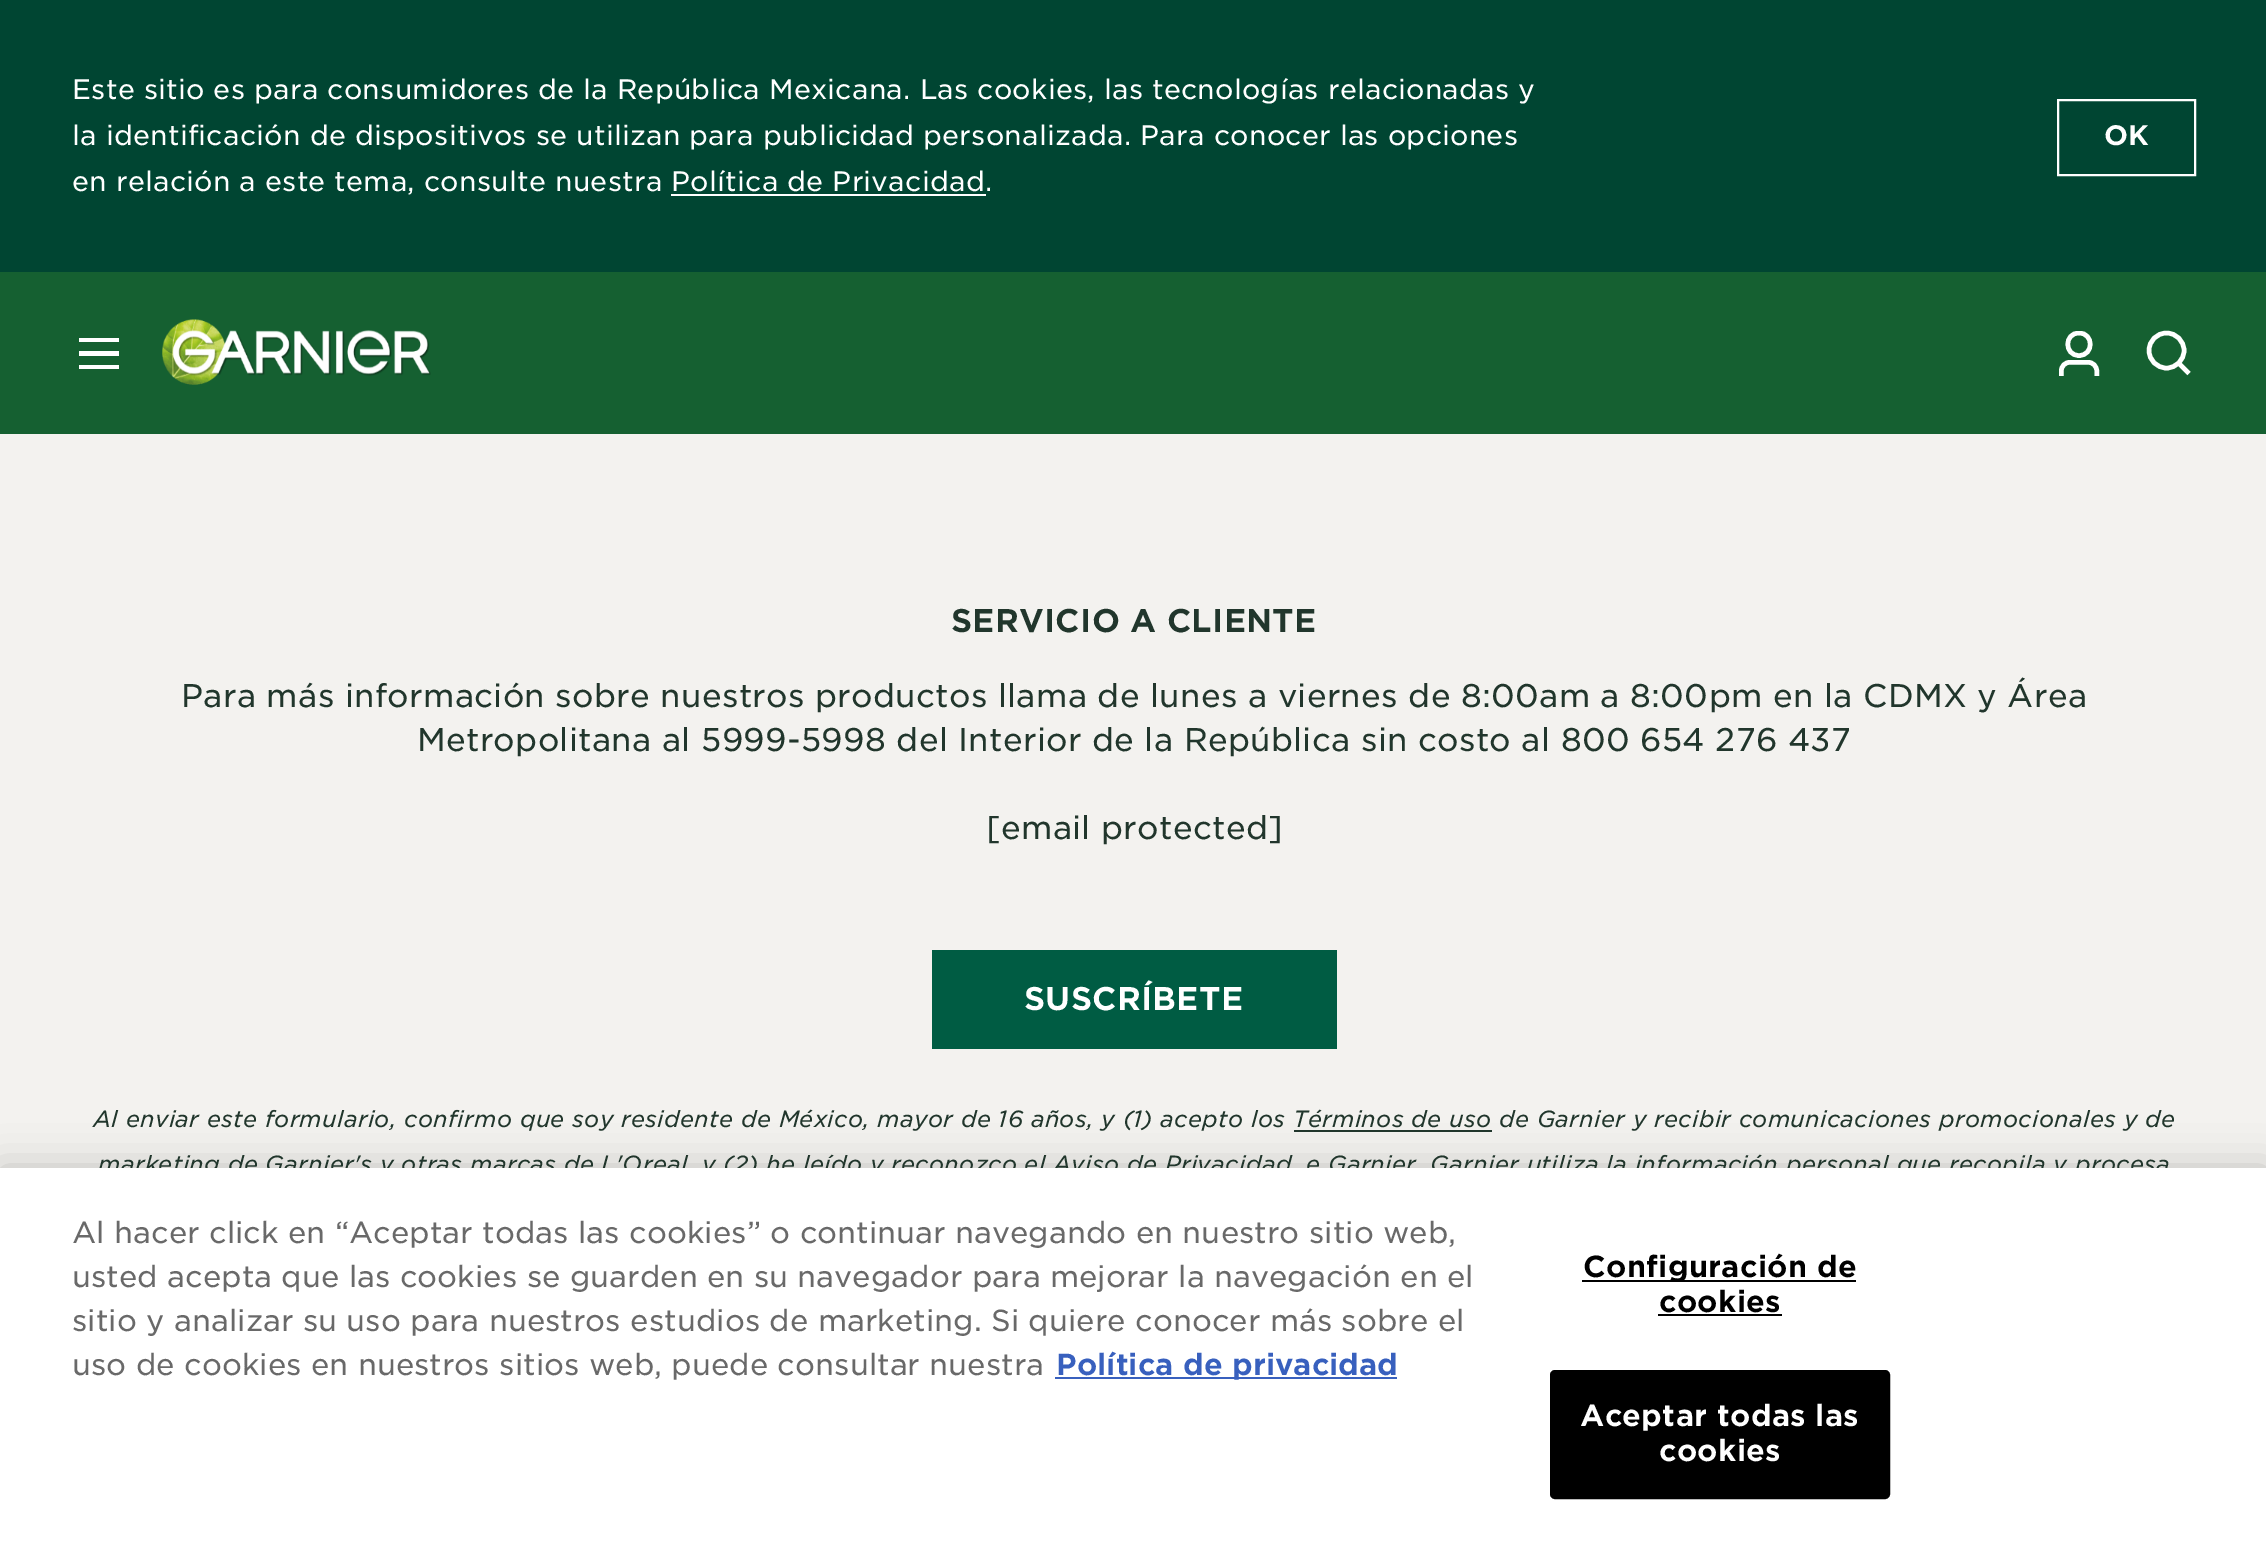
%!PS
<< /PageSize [2266 1543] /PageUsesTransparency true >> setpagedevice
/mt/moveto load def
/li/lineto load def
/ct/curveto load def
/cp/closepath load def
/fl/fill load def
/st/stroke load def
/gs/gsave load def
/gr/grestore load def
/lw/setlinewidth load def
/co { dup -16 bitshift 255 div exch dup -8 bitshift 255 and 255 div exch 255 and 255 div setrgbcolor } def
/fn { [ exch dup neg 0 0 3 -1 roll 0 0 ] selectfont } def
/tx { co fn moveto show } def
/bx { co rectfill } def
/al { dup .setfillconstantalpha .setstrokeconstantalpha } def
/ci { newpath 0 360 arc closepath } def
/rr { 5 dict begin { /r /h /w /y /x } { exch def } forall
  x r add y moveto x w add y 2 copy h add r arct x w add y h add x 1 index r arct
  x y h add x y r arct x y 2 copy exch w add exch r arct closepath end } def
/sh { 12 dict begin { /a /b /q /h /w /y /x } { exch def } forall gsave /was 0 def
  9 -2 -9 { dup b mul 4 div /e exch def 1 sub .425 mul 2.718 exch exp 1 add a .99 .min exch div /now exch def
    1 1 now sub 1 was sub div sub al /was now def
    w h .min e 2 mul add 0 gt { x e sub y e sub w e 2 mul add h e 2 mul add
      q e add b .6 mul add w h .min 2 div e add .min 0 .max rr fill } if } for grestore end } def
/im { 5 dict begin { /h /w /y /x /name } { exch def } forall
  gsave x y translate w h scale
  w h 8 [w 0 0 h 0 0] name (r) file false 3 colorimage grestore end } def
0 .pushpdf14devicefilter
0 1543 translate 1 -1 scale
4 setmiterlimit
0 0 2266 1543 16#F3F2EF bx
0 0 2266 272 16#004532 bx
671 194 315 2 16#FFFFFF bx
2 lw
2058 100 137 75 rectstroke
0 272 2266 162 16#156031 bx
79 338 40 4 16#FFFFFF bx
79 351 40 5 16#FFFFFF bx
79 365 40 4 16#FFFFFF bx
(media/1.raw) 162 319 269 66 im
gs
2057 331 45 45 rectclip
4.5 lw
2079 355.5 mt 2094 355.5 2094 333 2079 333 ct 2064 333 2064 355.5 2079 355.5 ct cp st
2061.25 362.25 35.5 49.5 8.75 rr st
gr
4.5 lw
2166.5 350.5 17.5 ci st
1 setlinejoin
2179 363.5 mt 2189 373.5 li st
932 950 405 99 16#005C43 bx
1294 1130 198 2 16#21362C bx
16#000000 co
0 1168 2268 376 0 20 .2 sh
/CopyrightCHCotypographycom-Light 27 fn
16#FFFFFF co
72 99 mt .23 0 (Este sitio es para consumidores de la República Mexicana. Las cookies, las tecnologías relacionadas y) ashow
72 145 mt .23 0 (la identificación de dispositivos se utilizan para publicidad personalizada. Para conocer las opciones) ashow
72 191 mt .23 0 (en relación a este tema, consulte nuestra Política de Privacidad.) ashow
(OK) 2104 145 /CopyrightCHCotypographycom-Regular 27 16#FFFFFF tx
/CopyrightCHCotypographycom-Regular 31.5 fn
16#21362C co
951 632 mt .23 0 (SERVICIO A CLIENTE) ashow
/CopyrightCHCotypographycom-Light 31.5 fn
181 707 mt .23 0 (Para más información sobre nuestros productos llama de lunes a viernes de 8:00am a 8:00pm en la CDMX y Área) ashow
417 751 mt .23 0 (Metropolitana al 5999-5998 del Interior de la República sin costo al 800 654 276 437) ashow
986 839 mt .23 0 ([email protected]) ashow
/CopyrightCHCotypographycom-Regular 31.5 fn
16#FFFFFF co
1024 1010 mt .23 0 (SUSCRÍBETE) ashow
/CopyrightCHCotypographycom-LightItalic 22.5 fn
16#21362C co
93 1127 mt .23 0 (Al enviar este formulario, confirmo que soy residente de México, mayor de 16 años, y \(1\) acepto los Términos de uso de Garnier y recibir comunicaciones promocionales y de) ashow
98 1172 mt .23 0 (marketing de Garnier's y otras marcas de L'Oreal, y \(2\) he leído y reconozco el Aviso de Privacidad) ashow
1306 1172 mt .23 0 (e Garnier. Garnier utiliza la información personal que recopila y procesa) ashow
0 1168 2266 375 16#FFFFFF bx
(Al hacer click en “Aceptar todas las cookies” o continuar navegando en nuestro sitio web,) 72 1243 /CopyrightCHCotypographycom-Light 29.25 16#696969 tx
(usted acepta que las cookies se guarden en su navegador para mejorar la navegación en el) 72 1287 /CopyrightCHCotypographycom-Light 29.25 16#696969 tx
(sitio y analizar su uso para nuestros estudios de marketing. Si quiere conocer más sobre el) 72 1331 /CopyrightCHCotypographycom-Light 29.25 16#696969 tx
(uso de cookies en nuestros sitios web, puede consultar nuestra) 72 1375 /CopyrightCHCotypographycom-Light 29.25 16#696969 tx
1055 1377 342 2 16#3860BE bx
(Política de privacidad) 1056 1375 /CopyrightCHCotypographycom-Regular 29.25 16#3860BE tx
1582 1280 274 2 16#000000 bx
1583 1277 mt .25 0 (Configuración de) ashow
1659 1312 mt .25 0 (cookies) ashow
1658 1314 124 2 16#000000 bx
1551 1371 338 127 4 rr gs fl gr
2 lw
0 setlinejoin
st
16#FFFFFF co
1580 1426 mt .25 0 (Aceptar todas las) ashow
1659 1461 mt .25 0 (cookies) ashow
.poppdf14devicefilter showpage
